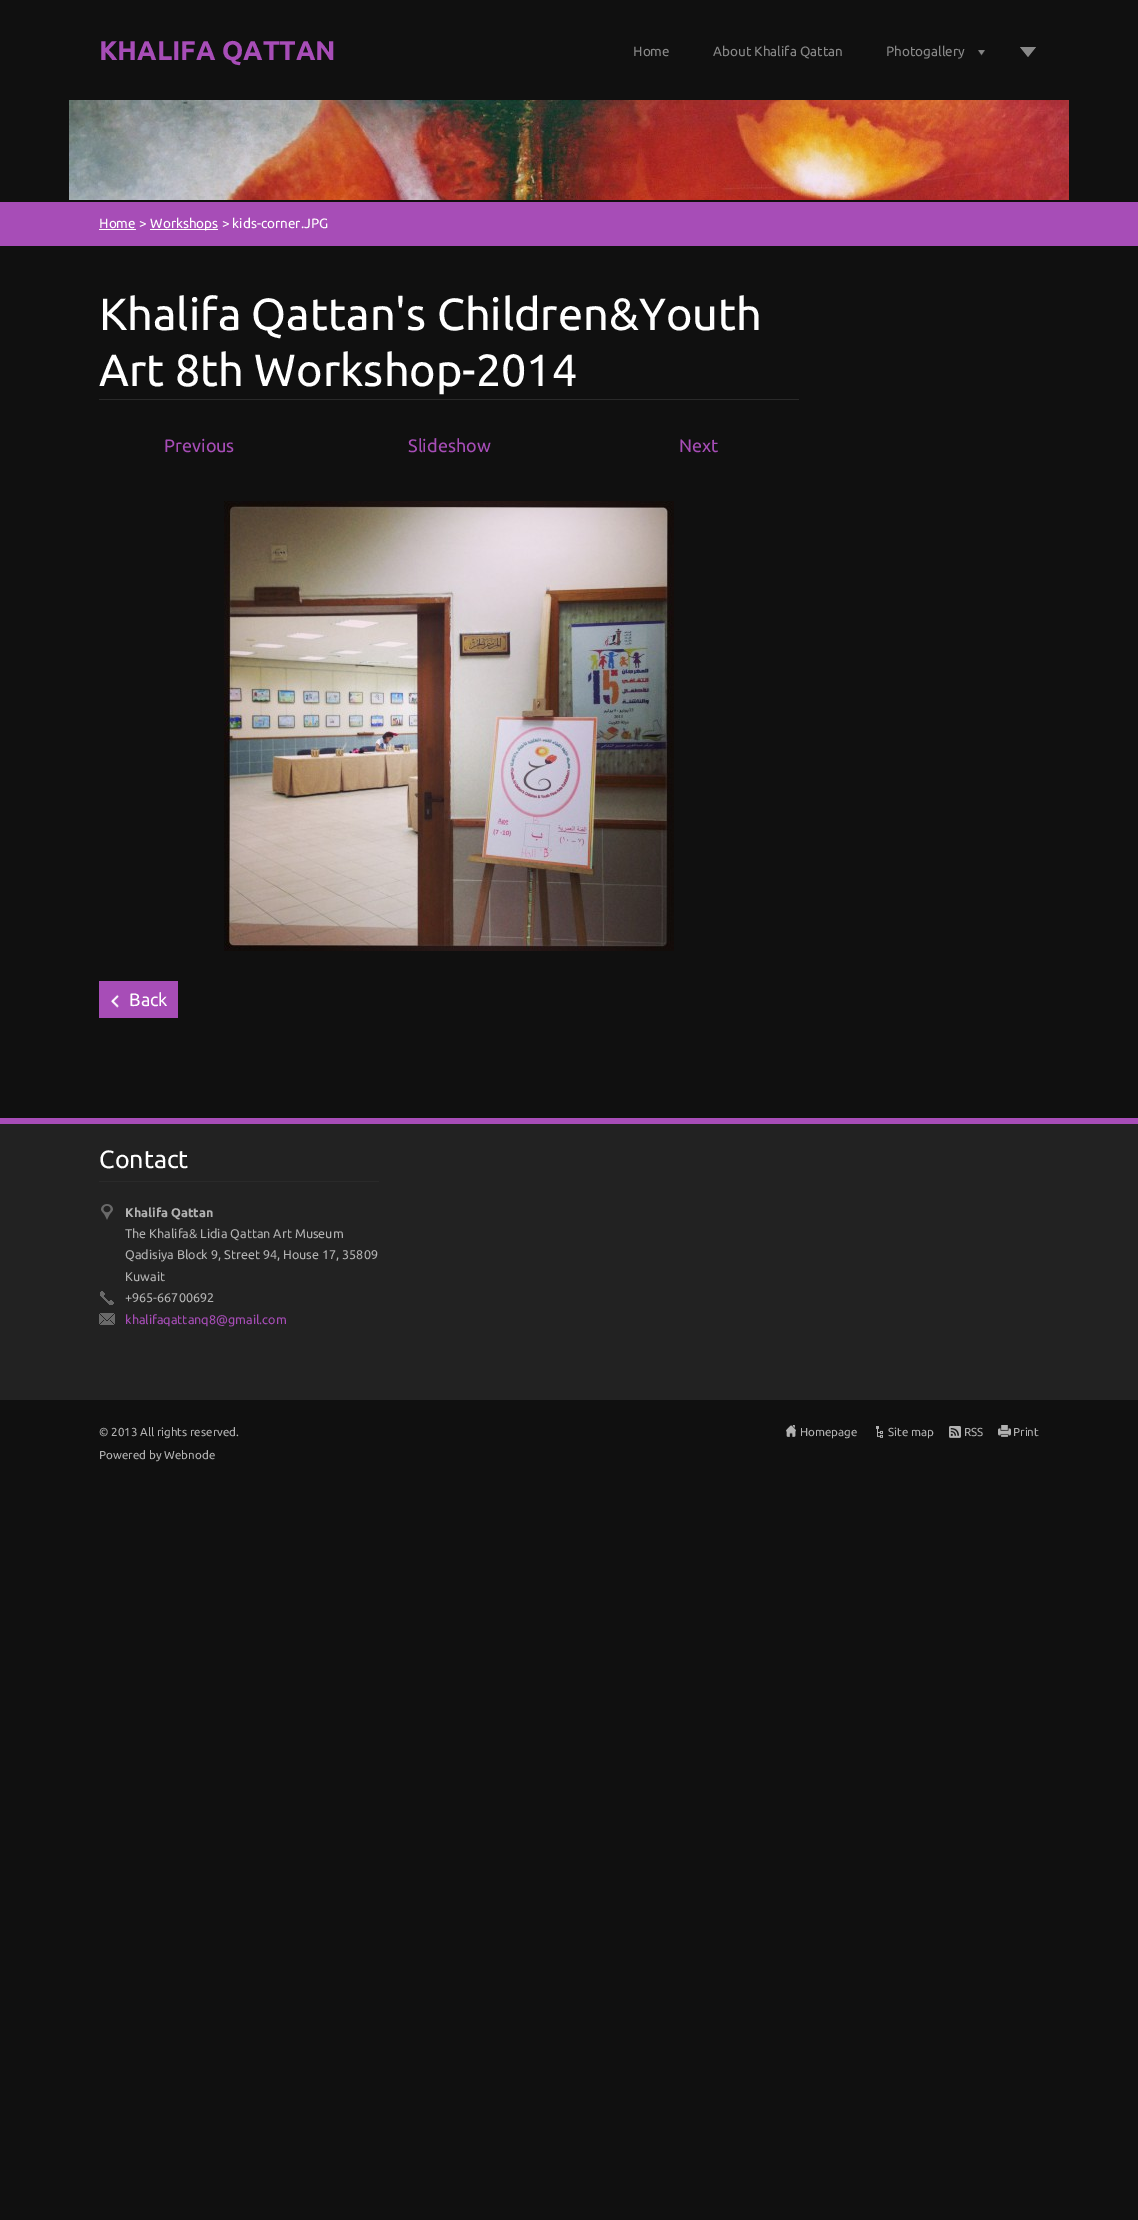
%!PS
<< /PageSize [1138 2220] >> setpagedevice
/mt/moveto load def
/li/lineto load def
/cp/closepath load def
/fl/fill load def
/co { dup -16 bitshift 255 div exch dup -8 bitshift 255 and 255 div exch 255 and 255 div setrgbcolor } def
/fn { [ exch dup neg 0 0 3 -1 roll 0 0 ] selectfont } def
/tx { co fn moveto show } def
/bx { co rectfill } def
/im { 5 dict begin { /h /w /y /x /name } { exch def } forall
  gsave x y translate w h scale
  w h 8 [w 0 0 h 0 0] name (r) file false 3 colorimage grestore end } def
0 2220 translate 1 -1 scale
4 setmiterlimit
0 0 1138 2220 16#101010 bx
(media/1.raw) 978 50 7 6 im
16#888888 co
1020 47 mt 1036 47 li 1028 57 li cp fl
(media/2.raw) 69 100 1000 100 im
0 202 1138 44 16#A74DB7 bx
99 229 37 1 16#FFFFFF bx
150 229 68 1 16#FFFFFF bx
99 399 700 1 16#2A2A2A bx
(media/3.raw) 224 501 450 450 im
99 981 79 37 16#A74DB7 bx
(media/4.raw) 111 994 8 14 im
0 1124 1138 276 16#222222 bx
0 1118 1138 6 16#A74DB7 bx
99 1181 280 1 16#2A2A2A bx
(media/5.raw) 101 1204 12 16 im
(media/6.raw) 100 1291 14 14 im
(media/7.raw) 99 1313 16 12 im
(media/8.raw) 786 1425 10 12 im
(media/9.raw) 876 1426 7 12 im
(media/10.raw) 949 1426 12 12 im
(media/11.raw) 998 1425 13 12 im
(KHALIFA QATTAN) 99 60 /Ubuntu-Bold 27 16#A74DB7 tx
(Home) 633 56 /Ubuntu-Regular 13.5 16#888888 tx
(About Khalifa Qattan) 713 56 /Ubuntu-Regular 13.5 16#888888 tx
(Photogallery) 886 56 /Ubuntu-Regular 13.5 16#888888 tx
(Home >) 99 228 /Ubuntu-Regular 13.5 16#FFFFFF tx
(Workshops > kids-corner.JPG) 150 228 /Ubuntu-Regular 13.5 16#FFFFFF tx
(Khalifa Qattan's Children&Youth) 99 330 /Ubuntu-Regular 45 16#FFFFFF tx
(Art 8th Workshop-2014) 99 386 /Ubuntu-Regular 45 16#FFFFFF tx
(Previous) 164 452 /Ubuntu-Regular 18 16#A74DB7 tx
(Slideshow) 408 452 /Ubuntu-Regular 18 16#A74DB7 tx
(Next) 679 452 /Ubuntu-Regular 18 16#A74DB7 tx
(Back) 129 1006 /Ubuntu-Regular 18 16#FFFFFF tx
(Contact) 99 1168 /Ubuntu-Regular 25 16#FFFFFF tx
(Khalifa Qattan) 125 1217 /Ubuntu-Bold 12.6 16#B2B2B2 tx
(The Khalifa& Lidia Qattan Art Museum) 125 1238 /Ubuntu-Regular 12.6 16#B2B2B2 tx
(Qadisiya Block 9, Street 94, House 17, 35809) 125 1259 /Ubuntu-Regular 12.6 16#B2B2B2 tx
(Kuwait) 125 1281 /Ubuntu-Regular 12.6 16#B2B2B2 tx
(+965-66700692) 125 1302 /Ubuntu-Regular 12.6 16#B2B2B2 tx
(khalifaqattanq8@gmail.com) 125 1324 /Ubuntu-Regular 12.6 16#A74DB7 tx
(© 2013 All rights reserved.) 99 1436 /Ubuntu-Regular 11.6 16#B2B2B2 tx
(Powered by Webnode) 99 1459 /Ubuntu-Regular 11.6 16#B2B2B2 tx
(Homepage) 800 1436 /Ubuntu-Regular 11.6 16#B2B2B2 tx
(Site map) 888 1436 /Ubuntu-Regular 11.6 16#B2B2B2 tx
(RSS) 964 1436 /Ubuntu-Regular 11.6 16#B2B2B2 tx
(Print) 1013 1436 /Ubuntu-Regular 11.6 16#B2B2B2 tx
showpage
